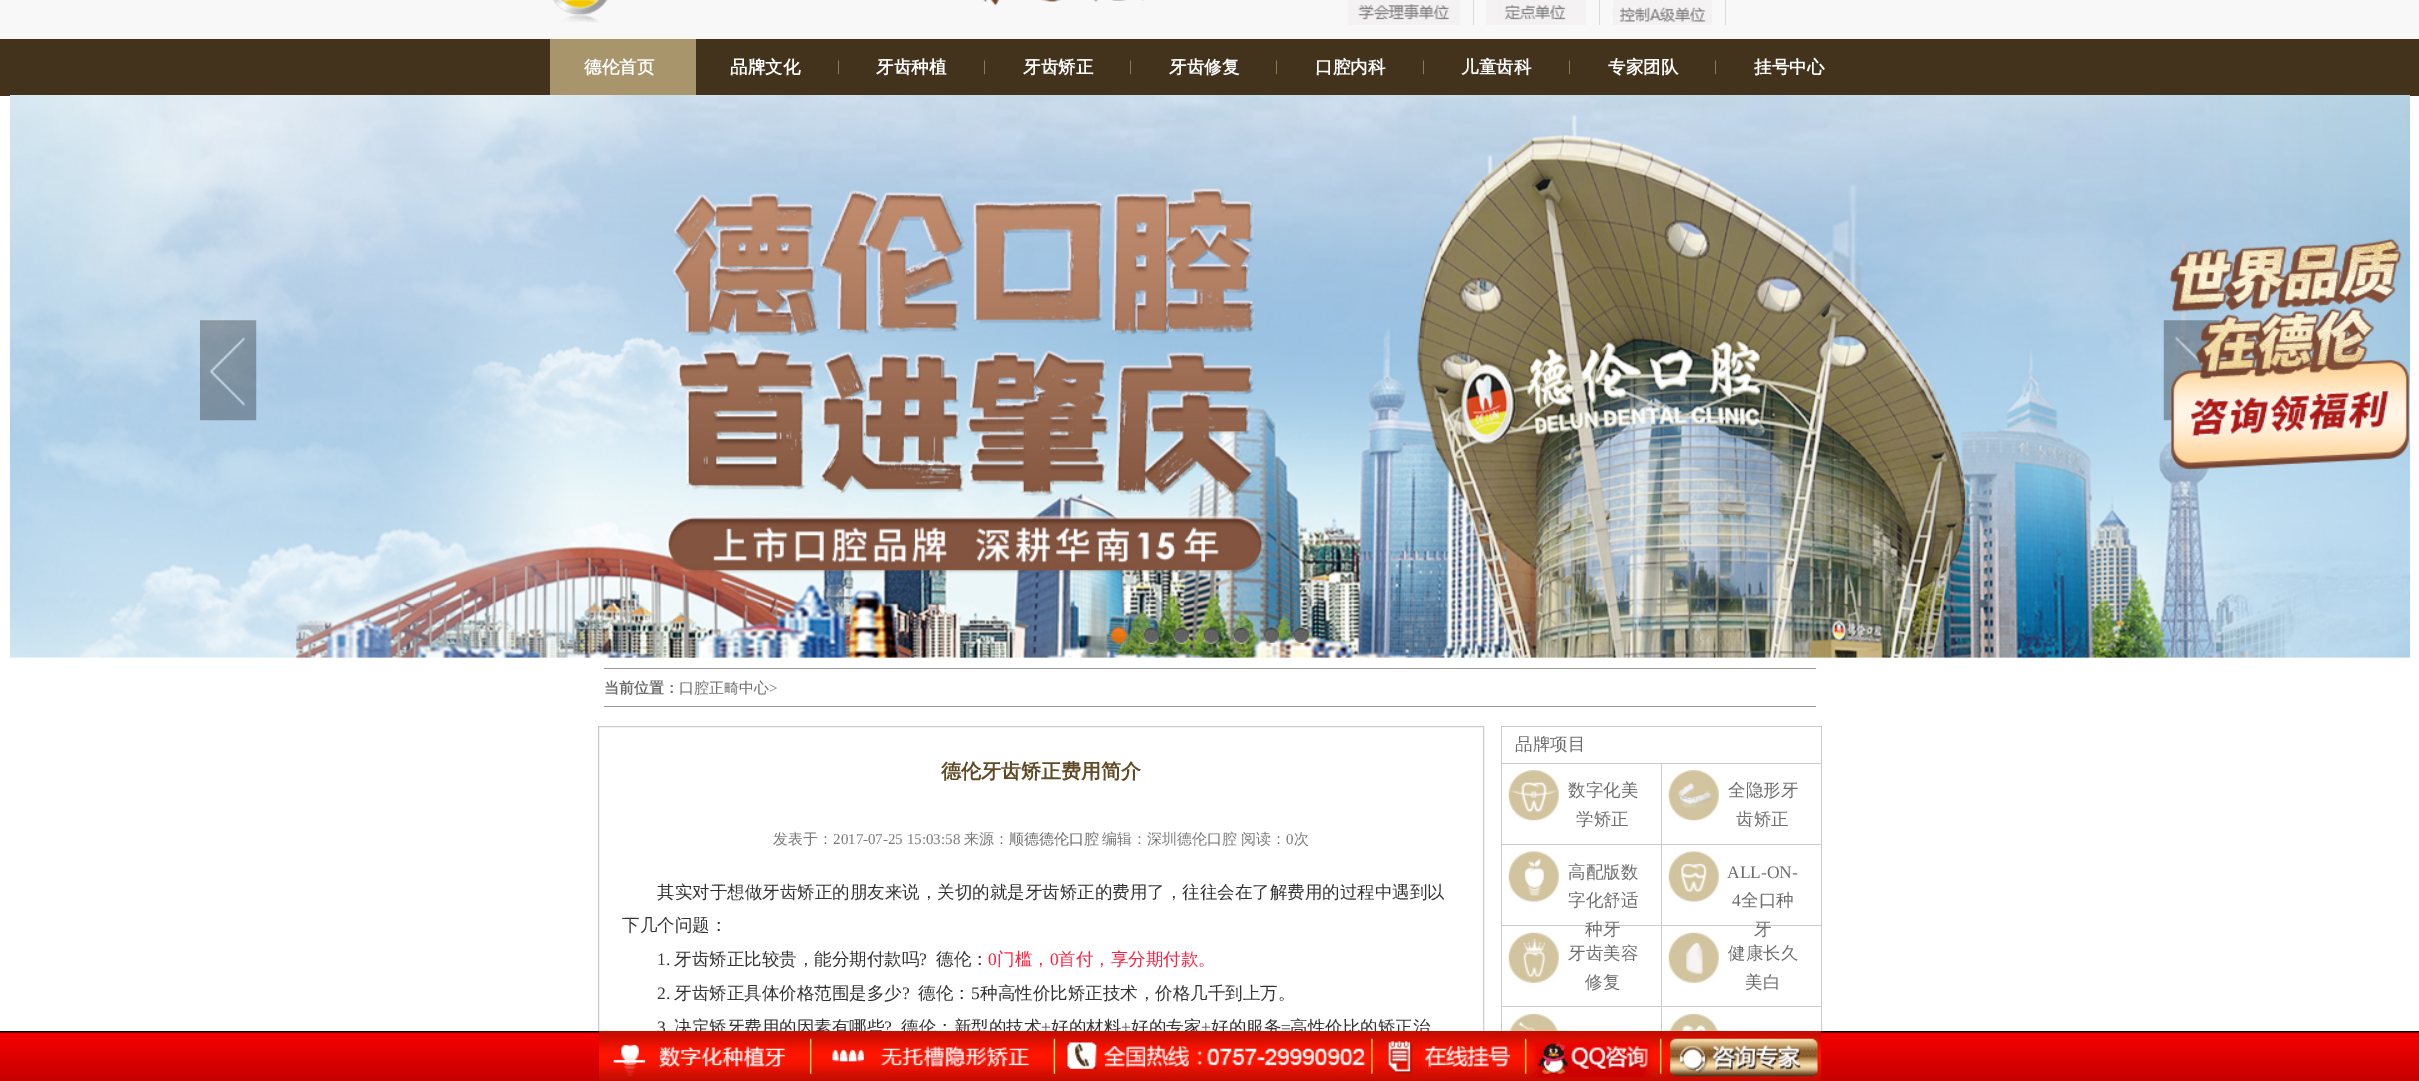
%!PS
<< /PageSize [2419 1081] >> setpagedevice
/co { dup -16 bitshift 255 div exch dup -8 bitshift 255 and 255 div exch 255 and 255 div setrgbcolor } def
/fn { [ exch dup neg 0 0 3 -1 roll 0 0 ] selectfont } def
/tx { co fn moveto show } def
/bx { co rectfill } def
/im { 5 dict begin { /h /w /y /x /name } { exch def } forall
  gsave x y translate w h scale
  w h 8 [w 0 0 h 0 0] name (r) file false 3 colorimage grestore end } def
0 1081 translate 1 -1 scale
4 setmiterlimit
0 0 2419 1081 16#FFFFFF bx
0 0 2419 39 16#F8F8F8 bx
(media/1.raw) 552 0 56 23 im
(media/2.raw) 983 0 161 6 im
1473 0 1 25 16#DADADA bx
(media/3.raw) 1348 0 112 25 im
1599 0 1 25 16#DADADA bx
(media/4.raw) 1486 0 100 25 im
1725 0 1 25 16#DADADA bx
(media/5.raw) 1613 0 99 25 im
0 39 2419 57 16#43331C bx
550 39 146 56 16#A9956B bx
(media/6.raw) 10 95 2400 563 im
(media/7.raw) 200 320 57 101 im
(media/8.raw) 2163 320 58 101 im
(media/9.raw) 1111 627 18 17 im
(media/10.raw) 1142 627 17 17 im
(media/11.raw) 1172 627 17 17 im
(media/12.raw) 1202 627 17 17 im
(media/13.raw) 1232 627 17 17 im
(media/14.raw) 1262 627 17 17 im
(media/15.raw) 1292 627 17 17 im
(media/16.raw) 2169 238 240 232 im
604 668 1212 1 16#999999 bx
604 706 1212 1 16#999999 bx
16#CCCCCC co
598.5 726.5 885 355 rectstroke
1821 726 1 305 16#CCCCCC bx
1501 726 320 1 16#CCCCCC bx
1501 763 320 1 16#CCCCCC bx
1501 726 1 38 16#CCCCCC bx
1501 844 320 1 16#CCCCCC bx
1501 764 1 81 16#CCCCCC bx
(media/17.raw) 1508 770 51 51 im
1661 764 1 81 16#CCCCCC bx
(media/18.raw) 1668 770 51 51 im
1501 925 320 1 16#CCCCCC bx
1501 845 1 81 16#CCCCCC bx
(media/19.raw) 1508 851 51 51 im
1661 845 1 81 16#CCCCCC bx
(media/20.raw) 1668 851 51 51 im
1501 1006 320 1 16#CCCCCC bx
1501 926 1 105 16#CCCCCC bx
(media/21.raw) 1508 932 51 51 im
1661 926 1 105 16#CCCCCC bx
(media/22.raw) 1668 932 51 51 im
(media/23.raw) 1508 1014 51 17 im
(media/24.raw) 1668 1014 51 17 im
(德伦首页) 584 73 /WenQuanYiZenHei-Bold 17.5 16#FFFFFF tx
(品牌文化) 730 73 /WenQuanYiZenHei-Bold 17.5 16#FFFFFF tx
(|) 837 71 /LiberationSerif-Regular 15 16#A9956B tx
(牙齿种植) 876 73 /WenQuanYiZenHei-Bold 17.5 16#FFFFFF tx
(|) 983 71 /LiberationSerif-Regular 15 16#A9956B tx
(牙齿矫正) 1023 73 /WenQuanYiZenHei-Bold 17.5 16#FFFFFF tx
(|) 1129 71 /LiberationSerif-Regular 15 16#A9956B tx
(牙齿修复) 1169 73 /WenQuanYiZenHei-Bold 17.5 16#FFFFFF tx
(|) 1275 71 /LiberationSerif-Regular 15 16#A9956B tx
(口腔内科) 1315 73 /WenQuanYiZenHei-Bold 17.5 16#FFFFFF tx
(|) 1422 71 /LiberationSerif-Regular 15 16#A9956B tx
(儿童齿科) 1461 73 /WenQuanYiZenHei-Bold 17.5 16#FFFFFF tx
(|) 1568 71 /LiberationSerif-Regular 15 16#A9956B tx
(专家团队) 1608 73 /WenQuanYiZenHei-Bold 17.5 16#FFFFFF tx
(|) 1714 71 /LiberationSerif-Regular 15 16#A9956B tx
(挂号中心) 1754 73 /WenQuanYiZenHei-Bold 17.5 16#FFFFFF tx
(当前位置：) 604 693 /WenQuanYiZenHei-Bold 15 16#6E6E6E tx
(口腔正畸中心) 679 693 /WenQuanYiZenHei-Medium 15 16#6E6E6E tx
(>) 769 693 /LiberationSerif-Regular 15 16#6E6E6E tx
(德伦牙齿矫正费用简介) 941 778 /WenQuanYiZenHei-Bold 20 16#614924 tx
(发表于：) 773 844 /WenQuanYiZenHei-Medium 15 16#7A7A7A tx
(2017-07-25 15:03:58) 833 844 /LiberationSerif-Regular 15 16#7A7A7A tx
(来源：) 964 844 /WenQuanYiZenHei-Medium 15 16#7A7A7A tx
(顺德德伦口腔) 1009 844 /WenQuanYiZenHei-Medium 15 16#6E6E6E tx
(编辑：深圳德伦口腔 阅读：) 1102 844 /WenQuanYiZenHei-Medium 15 16#7A7A7A tx
(0) 1286 844 /LiberationSerif-Regular 15 16#7A7A7A tx
(次) 1294 844 /WenQuanYiZenHei-Medium 15 16#7A7A7A tx
(其实对于想做牙齿矫正的朋友来说，关切的就是牙齿矫正的费用了，往往会在了解费用的过程中遇到以) 657 898 /WenQuanYiZenHei-Medium 17.5 16#333333 tx
(下几个问题：) 622 931 /WenQuanYiZenHei-Medium 17.5 16#333333 tx
(1.) 657 965 /LiberationSerif-Regular 17.5 16#333333 tx
(牙齿矫正比较贵，能分期付款吗) 674 965 /WenQuanYiZenHei-Medium 17.5 16#333333 tx
(?) 919 965 /LiberationSerif-Regular 17.5 16#333333 tx
(德伦：) 936 965 /WenQuanYiZenHei-Medium 17.5 16#333333 tx
(0) 988 965 /LiberationSerif-Regular 17.5 16#FF2040 tx
(门槛，) 997 965 /WenQuanYiZenHei-Medium 17.5 16#FF2040 tx
(0) 1050 965 /LiberationSerif-Regular 17.5 16#FF2040 tx
(首付，享分期付款。) 1058 965 /WenQuanYiZenHei-Medium 17.5 16#FF2040 tx
(2.) 657 999 /LiberationSerif-Regular 17.5 16#333333 tx
(牙齿矫正具体价格范围是多少) 674 999 /WenQuanYiZenHei-Medium 17.5 16#333333 tx
(?) 902 999 /LiberationSerif-Regular 17.5 16#333333 tx
(德伦：) 918 999 /WenQuanYiZenHei-Medium 17.5 16#333333 tx
(5) 971 999 /LiberationSerif-Regular 17.5 16#333333 tx
(种高性价比矫正技术，价格几千到上万。) 980 999 /WenQuanYiZenHei-Medium 17.5 16#333333 tx
(3) 657 1033 /LiberationSerif-Regular 17.5 16#333333 tx
(决定矫牙费用的因素有哪些) 674 1033 /WenQuanYiZenHei-Medium 17.5 16#333333 tx
(?) 884 1033 /LiberationSerif-Regular 17.5 16#333333 tx
(德伦：新型的技术) 901 1033 /WenQuanYiZenHei-Medium 17.5 16#333333 tx
(+) 1041 1033 /LiberationSerif-Regular 17.5 16#333333 tx
(好的材料) 1051 1033 /WenQuanYiZenHei-Medium 17.5 16#333333 tx
(+) 1121 1033 /LiberationSerif-Regular 17.5 16#333333 tx
(好的专家) 1131 1033 /WenQuanYiZenHei-Medium 17.5 16#333333 tx
(+) 1201 1033 /LiberationSerif-Regular 17.5 16#333333 tx
(好的服务) 1211 1033 /WenQuanYiZenHei-Medium 17.5 16#333333 tx
(=) 1281 1033 /LiberationSerif-Regular 17.5 16#333333 tx
(高性价比的矫正治) 1290 1033 /WenQuanYiZenHei-Medium 17.5 16#333333 tx
(品牌项目) 1515 750 /WenQuanYiZenHei-Medium 17.5 16#6E6E6E tx
(数字化美) 1568 796 /WenQuanYiZenHei-Medium 17.5 16#6E6E6E tx
(学矫正) 1576 825 /WenQuanYiZenHei-Medium 17.5 16#6E6E6E tx
(全隐形牙) 1728 796 /WenQuanYiZenHei-Medium 17.5 16#6E6E6E tx
(齿矫正) 1736 825 /WenQuanYiZenHei-Medium 17.5 16#6E6E6E tx
(高配版数) 1568 878 /WenQuanYiZenHei-Medium 17.5 16#6E6E6E tx
(字化舒适) 1568 906 /WenQuanYiZenHei-Medium 17.5 16#6E6E6E tx
(种牙) 1585 935 /WenQuanYiZenHei-Medium 17.5 16#6E6E6E tx
(ALL-ON-) 1727 878 /LiberationSerif-Regular 17.5 16#6E6E6E tx
(4) 1732 906 /LiberationSerif-Regular 17.5 16#6E6E6E tx
(全口种) 1741 906 /WenQuanYiZenHei-Medium 17.5 16#6E6E6E tx
(牙) 1754 935 /WenQuanYiZenHei-Medium 17.5 16#6E6E6E tx
(牙齿美容) 1568 959 /WenQuanYiZenHei-Medium 17.5 16#6E6E6E tx
(修复) 1585 988 /WenQuanYiZenHei-Medium 17.5 16#6E6E6E tx
(健康长久) 1728 959 /WenQuanYiZenHei-Medium 17.5 16#6E6E6E tx
(美白) 1745 988 /WenQuanYiZenHei-Medium 17.5 16#6E6E6E tx
(media/25.raw) 0 1031 2419 50 im
(media/26.raw) 599 1031 1222 50 im
showpage
